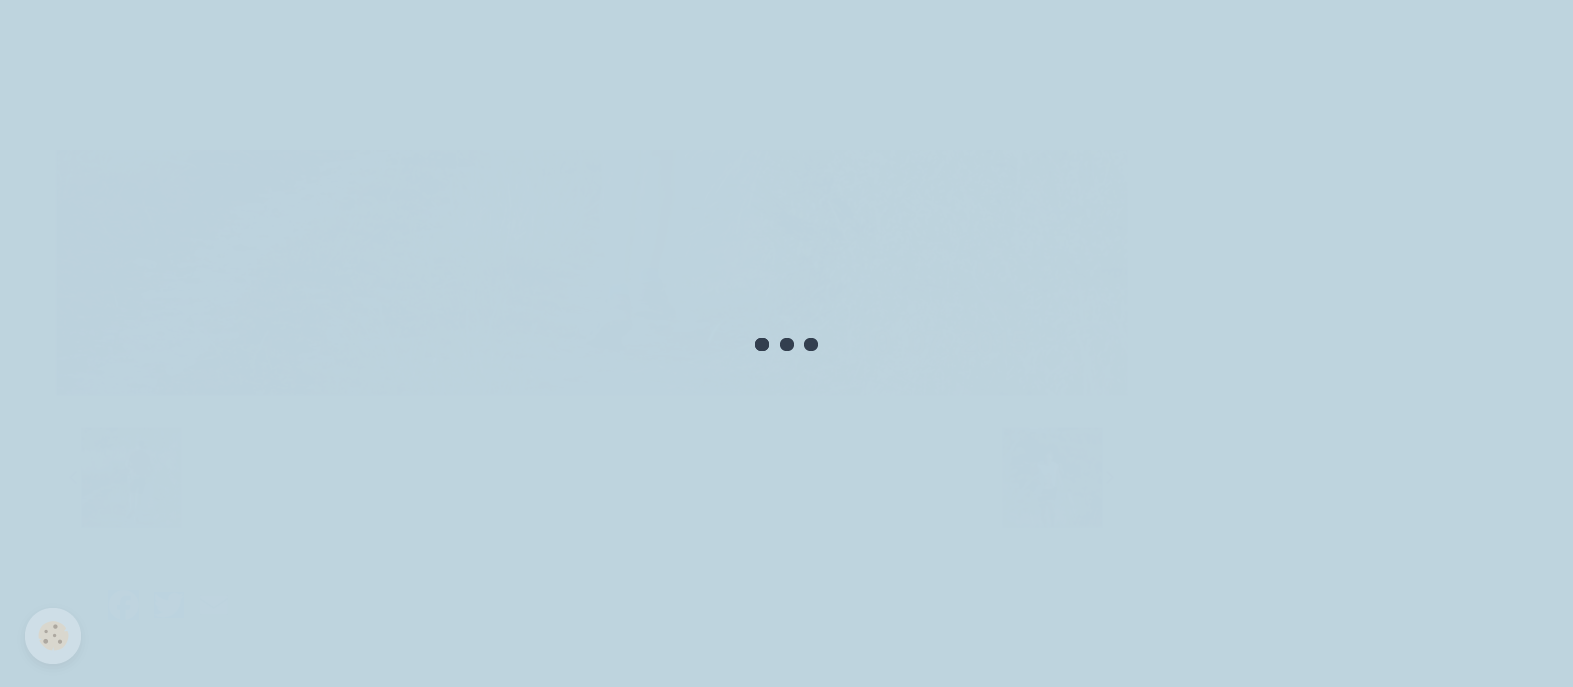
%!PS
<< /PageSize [1573 687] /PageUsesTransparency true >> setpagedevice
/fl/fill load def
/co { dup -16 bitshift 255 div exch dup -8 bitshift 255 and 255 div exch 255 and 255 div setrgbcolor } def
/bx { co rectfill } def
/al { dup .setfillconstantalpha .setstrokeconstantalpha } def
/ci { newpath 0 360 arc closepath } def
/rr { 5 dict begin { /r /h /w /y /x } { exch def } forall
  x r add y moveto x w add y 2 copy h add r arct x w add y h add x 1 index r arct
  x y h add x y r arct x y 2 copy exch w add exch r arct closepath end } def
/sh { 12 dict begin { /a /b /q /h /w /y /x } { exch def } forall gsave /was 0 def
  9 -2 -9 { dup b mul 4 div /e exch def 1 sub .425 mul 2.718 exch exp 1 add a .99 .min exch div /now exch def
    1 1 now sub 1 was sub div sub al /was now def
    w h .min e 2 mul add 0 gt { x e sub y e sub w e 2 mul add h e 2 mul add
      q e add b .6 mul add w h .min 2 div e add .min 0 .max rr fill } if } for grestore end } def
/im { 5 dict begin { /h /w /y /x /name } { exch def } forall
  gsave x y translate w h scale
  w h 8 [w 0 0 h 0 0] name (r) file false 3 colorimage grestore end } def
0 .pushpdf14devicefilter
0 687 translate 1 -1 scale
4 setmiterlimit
0 0 1573 687 16#BED4DE bx
(media/1.raw) 55 150 1073 246 im
(media/2.raw) 69 471 8 13 im
(media/3.raw) 81 427 101 101 im
(media/4.raw) 1002 427 101 101 im
(media/5.raw) 1106 471 8 13 im
(media/6.raw) 108 590 31 30 im
(media/7.raw) 154 592 30 26 im
(media/8.raw) 200 595 28 20 im
16#333F4F co
755 338 14 13 6.5 rr fl
0.99 al
16#323E4E co
755 338 14 13 6.5 rr fl
1 al
16#333F4F co
780 338 14 13 6.5 rr fl
804 338 14 13 6.5 rr fl
16#8E9EA7 co
25 611 56 57 28 6 .24 sh
16#CEDEE7 co
53 636 28 ci fl
(media/9.raw) 38 621 31 30 im
.poppdf14devicefilter showpage
